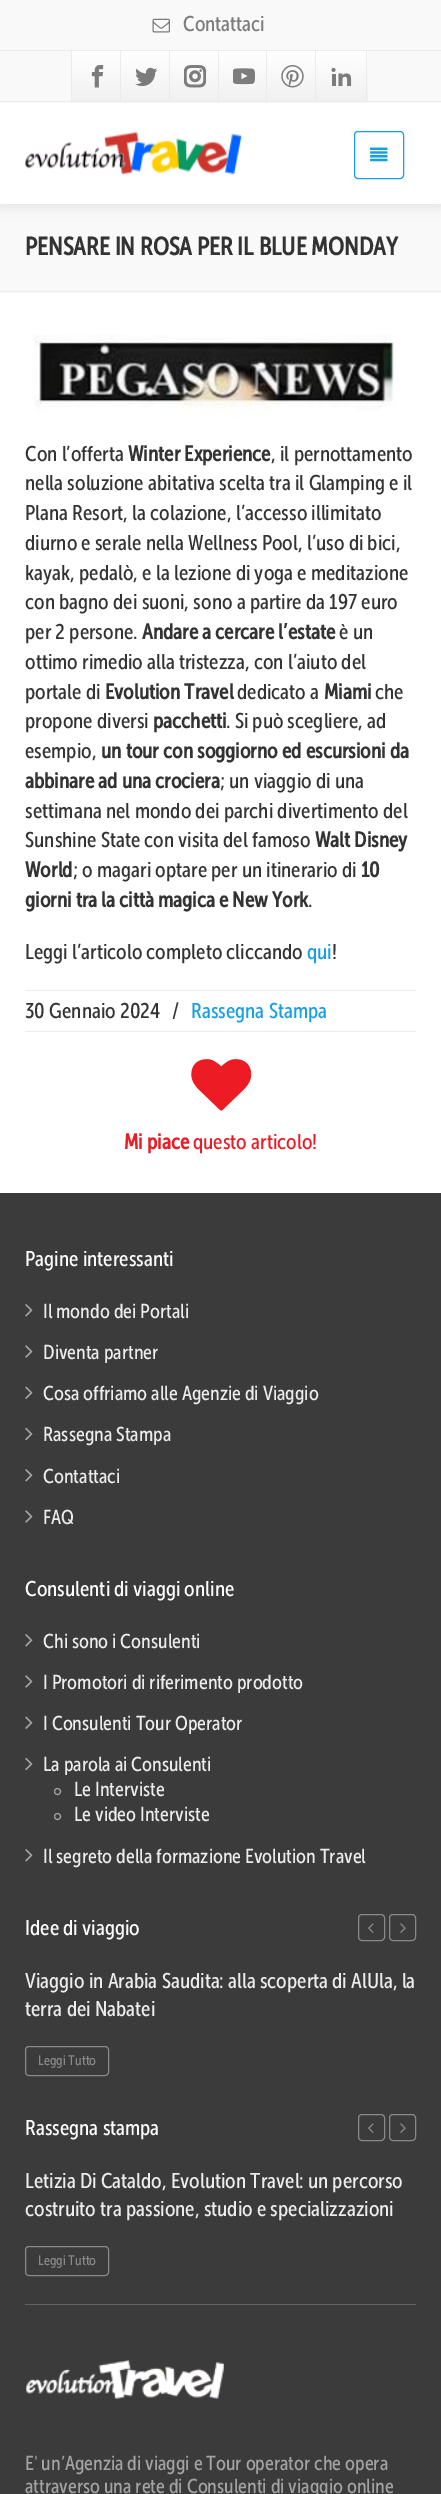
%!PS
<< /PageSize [441 2494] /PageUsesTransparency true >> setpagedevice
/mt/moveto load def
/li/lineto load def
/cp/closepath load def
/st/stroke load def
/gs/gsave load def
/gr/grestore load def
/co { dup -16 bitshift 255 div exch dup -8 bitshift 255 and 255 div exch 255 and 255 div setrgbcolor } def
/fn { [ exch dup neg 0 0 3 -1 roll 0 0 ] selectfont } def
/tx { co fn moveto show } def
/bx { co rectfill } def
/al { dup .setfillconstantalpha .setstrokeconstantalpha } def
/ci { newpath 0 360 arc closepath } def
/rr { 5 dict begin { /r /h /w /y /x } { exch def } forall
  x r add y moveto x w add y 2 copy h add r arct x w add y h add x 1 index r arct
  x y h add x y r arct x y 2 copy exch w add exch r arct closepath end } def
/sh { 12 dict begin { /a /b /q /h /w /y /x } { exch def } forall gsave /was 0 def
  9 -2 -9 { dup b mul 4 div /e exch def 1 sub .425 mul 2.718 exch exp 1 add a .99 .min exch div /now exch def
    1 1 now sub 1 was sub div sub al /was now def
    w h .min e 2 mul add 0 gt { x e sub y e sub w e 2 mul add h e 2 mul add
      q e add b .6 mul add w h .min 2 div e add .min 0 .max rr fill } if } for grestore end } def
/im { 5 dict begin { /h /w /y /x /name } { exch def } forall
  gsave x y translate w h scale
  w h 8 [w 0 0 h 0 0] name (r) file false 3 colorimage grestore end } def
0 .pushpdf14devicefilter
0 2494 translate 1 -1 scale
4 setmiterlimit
0 0 441 2494 16#FFFFFF bx
0 204 441 89 16#F9F9F9 bx
16#000000 co
0 105 441 101 0 6 .1 sh
0 0 441 101 16#F9F9F9 bx
0 101 441 1 16#EBEBEB bx
0 50 441 1 16#EBEBEB bx
(media/1.raw) 152 18 18 15 im
gs 72 51 mt 120 51 li 120 101 li 72 101 li cp clip newpath
<< /ShadingType 2 /ColorSpace /DeviceRGB /Coords [98 51 98 101] /Extend [true true] /Function << /FunctionType 2 /Domain [0 1] /C0 [1 1 1] /C1 [.945 .945 .945] /N 1 >> >> shfill gr
71 51 1 50 16#EBEBEB bx
(media/2.raw) 91 65 13 23 im
gs 121 51 mt 169 51 li 169 101 li 121 101 li cp clip newpath
<< /ShadingType 2 /ColorSpace /DeviceRGB /Coords [146 51 146 101] /Extend [true true] /Function << /FunctionType 2 /Domain [0 1] /C0 [1 1 1] /C1 [.945 .945 .945] /N 1 >> >> shfill gr
120 51 1 50 16#EBEBEB bx
(media/3.raw) 135 67 23 20 im
gs 170 51 mt 218 51 li 218 101 li 170 101 li cp clip newpath
<< /ShadingType 2 /ColorSpace /DeviceRGB /Coords [195 51 195 101] /Extend [true true] /Function << /FunctionType 2 /Domain [0 1] /C0 [1 1 1] /C1 [.945 .945 .945] /N 1 >> >> shfill gr
169 51 1 50 16#EBEBEB bx
(media/4.raw) 184 65 22 23 im
gs 219 51 mt 266 51 li 266 101 li 219 101 li cp clip newpath
<< /ShadingType 2 /ColorSpace /DeviceRGB /Coords [244 51 244 101] /Extend [true true] /Function << /FunctionType 2 /Domain [0 1] /C0 [1 1 1] /C1 [.945 .945 .945] /N 1 >> >> shfill gr
218 51 1 50 16#EBEBEB bx
(media/5.raw) 233 68 22 17 im
gs 267 51 mt 315 51 li 315 101 li 267 101 li cp clip newpath
<< /ShadingType 2 /ColorSpace /DeviceRGB /Coords [293 51 293 101] /Extend [true true] /Function << /FunctionType 2 /Domain [0 1] /C0 [1 1 1] /C1 [.945 .945 .945] /N 1 >> >> shfill gr
266 51 1 50 16#EBEBEB bx
(media/6.raw) 281 65 23 23 im
gs 316 51 mt 368 51 li 368 101 li 316 101 li cp clip newpath
<< /ShadingType 2 /ColorSpace /DeviceRGB /Coords [341 51 341 101] /Extend [true true] /Function << /FunctionType 2 /Domain [0 1] /C0 [1 1 1] /C1 [.945 .945 .945] /N 1 >> >> shfill gr
366 51 1 50 16#EBEBEB bx
315 51 1 50 16#EBEBEB bx
(media/7.raw) 331 67 21 20 im
0 103 441 101 16#FFFFFF bx
(media/8.raw) 25 131 217 44 im
16#169FE6 co
354.5 131.5 49 47 3.5 rr st
(media/9.raw) 370 147 18 15 im
0 291 441 1 16#EBEBEB bx
(media/10.raw) 34 334 363 84 im
25 990 391 1 16#EBEBEB bx
25 1031 391 1 16#EBEBEB bx
(media/11.raw) 191 1059 61 52 im
0 1193 441 1301 16#3B3B3B bx
(media/12.raw) 25 1304 8 13 im
(media/13.raw) 25 1345 8 13 im
(media/14.raw) 25 1386 8 13 im
(media/15.raw) 25 1427 8 14 im
(media/12.raw) 25 1469 8 13 im
(media/13.raw) 25 1510 8 13 im
(media/12.raw) 25 1634 8 13 im
(media/13.raw) 25 1675 8 13 im
(media/14.raw) 25 1716 8 13 im
(media/15.raw) 25 1757 8 14 im
16#A3A3A3 co
57.5 1791.5 3 ci st
57.5 1816.5 3 ci st
(media/12.raw) 25 1849 8 13 im
16#898989 co
358.5 1914.5 26 26 3.5 rr st
(media/16.raw) 368 1923 6 10 im
389.5 1914.5 26 26 3.5 rr st
(media/17.raw) 400 1923 6 10 im
25.5 2046.5 83 29 3.5 rr st
358.5 2114.5 26 26 3.5 rr st
(media/16.raw) 368 2123 6 10 im
389.5 2114.5 26 26 3.5 rr st
(media/17.raw) 400 2123 6 10 im
25.5 2246.5 83 29 3.5 rr st
25 2304 391 1 16#626262 bx
(media/18.raw) 26 2359 198 40 im
(Contattaci) 183 31 /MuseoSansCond-Regular 21.25 16#7C7C7C tx
(PENSARE IN ROSA PER IL BLUE MONDAY) 25 255 /MuseoSansCond-Bold 25 16#333333 tx
(Con l’offerta) 25 461 /MuseoSansCond-Regular 21.25 16#333333 tx
(Winter Experience) 128 461 /MuseoSansCond-Bold 21.25 16#333333 tx
(, il pernottamento) 271 461 /MuseoSansCond-Regular 21.25 16#333333 tx
(nella soluzione abitativa scelta tra il Glamping e il) 25 490 /MuseoSansCond-Regular 21.25 16#333333 tx
(Plana Resort, la colazione, l’accesso illimitato) 25 520 /MuseoSansCond-Regular 21.25 16#333333 tx
(diurno e serale nella Wellness Pool, l’uso di bici,) 25 550 /MuseoSansCond-Regular 21.25 16#333333 tx
(kayak, pedalò, e la lezione di yoga e meditazione) 25 580 /MuseoSansCond-Regular 21.25 16#333333 tx
(con bagno dei suoni, sono a partire da 197 euro) 25 609 /MuseoSansCond-Regular 21.25 16#333333 tx
(per 2 persone.) 25 639 /MuseoSansCond-Regular 21.25 16#333333 tx
(Andare a cercare l’estate) 142 639 /MuseoSansCond-Bold 21.25 16#333333 tx
(è un) 339 639 /MuseoSansCond-Regular 21.25 16#333333 tx
(ottimo rimedio alla tristezza, con l’aiuto del) 25 669 /MuseoSansCond-Regular 21.25 16#333333 tx
(portale di) 25 699 /MuseoSansCond-Regular 21.25 16#333333 tx
(Evolution Travel) 105 699 /MuseoSansCond-Bold 21.25 16#333333 tx
(dedicato a) 237 699 /MuseoSansCond-Regular 21.25 16#333333 tx
(Miami) 324 699 /MuseoSansCond-Bold 21.25 16#333333 tx
(che) 375 699 /MuseoSansCond-Regular 21.25 16#333333 tx
(propone diversi) 25 728 /MuseoSansCond-Regular 21.25 16#333333 tx
(pacchetti) 153 728 /MuseoSansCond-Bold 21.25 16#333333 tx
(. Si può scegliere, ad) 226 728 /MuseoSansCond-Regular 21.25 16#333333 tx
(esempio,) 25 758 /MuseoSansCond-Regular 21.25 16#333333 tx
(un tour con soggiorno ed escursioni da) 101 758 /MuseoSansCond-Bold 21.25 16#333333 tx
(abbinare ad una crociera) 25 788 /MuseoSansCond-Bold 21.25 16#333333 tx
(; un viaggio di una) 220 788 /MuseoSansCond-Regular 21.25 16#333333 tx
(settimana nel mondo dei parchi divertimento del) 25 818 /MuseoSansCond-Regular 21.25 16#333333 tx
(Sunshine State con visita del famoso) 25 847 /MuseoSansCond-Regular 21.25 16#333333 tx
(Walt Disney) 315 847 /MuseoSansCond-Bold 21.25 16#333333 tx
(World) 25 877 /MuseoSansCond-Bold 21.25 16#333333 tx
(; o magari optare per un itinerario di) 73 877 /MuseoSansCond-Regular 21.25 16#333333 tx
(10) 361 877 /MuseoSansCond-Bold 21.25 16#333333 tx
(giorni tra la città magica e New York) 25 907 /MuseoSansCond-Bold 21.25 16#333333 tx
(.) 308 907 /MuseoSansCond-Regular 21.25 16#333333 tx
(Leggi l’articolo completo cliccando) 25 959 /MuseoSansCond-Regular 21.25 16#333333 tx
(qui) 307 959 /MuseoSansCond-Regular 21.25 16#169FE6 tx
(!) 332 959 /MuseoSansCond-Regular 21.25 16#333333 tx
(30 Gennaio 2024) 25 1018 /MuseoSansCond-Regular 21.25 16#333333 tx
(/) 172 1018 /MuseoSansCond-Regular 21.25 16#333333 tx
(Rassegna Stampa) 191 1018 /MuseoSansCond-Regular 21.25 16#169FE6 tx
(Mi piace) 124 1149 /MuseoSansCond-Bold 21.25 16#ED1C24 tx
(questo articolo!) 193 1149 /MuseoSansCond-Regular 21.25 16#ED1C24 tx
(Pagine interessanti) 25 1266 /MuseoSansCond-Regular 21.25 16#FDFDFD tx
(Il mondo dei Portali) 43 1318 /MuseoSansCond-Regular 20 16#ECECEC tx
(Diventa partner) 43 1359 /MuseoSansCond-Regular 20 16#ECECEC tx
(Cosa offriamo alle Agenzie di Viaggio) 43 1400 /MuseoSansCond-Regular 20 16#ECECEC tx
(Rassegna Stampa) 43 1441 /MuseoSansCond-Regular 20 16#ECECEC tx
(Contattaci) 43 1483 /MuseoSansCond-Regular 20 16#ECECEC tx
(FAQ) 43 1524 /MuseoSansCond-Regular 20 16#ECECEC tx
(Consulenti di viaggi online) 25 1596 /MuseoSansCond-Regular 21.25 16#FDFDFD tx
(Chi sono i Consulenti) 43 1648 /MuseoSansCond-Regular 20 16#ECECEC tx
(I Promotori di riferimento prodotto) 43 1689 /MuseoSansCond-Regular 20 16#ECECEC tx
(I Consulenti Tour Operator) 43 1730 /MuseoSansCond-Regular 20 16#ECECEC tx
(La parola ai Consulenti) 43 1771 /MuseoSansCond-Regular 20 16#ECECEC tx
(Le Interviste) 74 1796 /MuseoSansCond-Regular 20 16#ECECEC tx
(Le video Interviste) 74 1821 /MuseoSansCond-Regular 20 16#ECECEC tx
(Il segreto della formazione Evolution Travel) 43 1863 /MuseoSansCond-Regular 20 16#ECECEC tx
(Idee di viaggio) 25 1935 /MuseoSansCond-Regular 21.25 16#FDFDFD tx
(Viaggio in Arabia Saudita: alla scoperta di AlUla, la) 25 1988 /MuseoSansCond-Regular 21.25 16#ECECEC tx
(terra dei Nabatei) 25 2016 /MuseoSansCond-Regular 21.25 16#ECECEC tx
(Leggi Tutto) 38 2065 /MuseoSansCond-Regular 13.75 16#898989 tx
(Rassegna stampa) 25 2135 /MuseoSansCond-Regular 21.25 16#FDFDFD tx
(Letizia Di Cataldo, Evolution Travel: un percorso) 25 2188 /MuseoSansCond-Regular 21.25 16#ECECEC tx
(costruito tra passione, studio e specializzazioni) 25 2216 /MuseoSansCond-Regular 21.25 16#ECECEC tx
(Leggi Tutto) 38 2265 /MuseoSansCond-Regular 13.75 16#898989 tx
(E' un’Agenzia di viaggi e Tour operator che opera) 25 2470 /MuseoSansCond-Regular 20 16#A3A3A3 tx
(attraverso una rete di Consulenti di viaggio online) 25 2493 /MuseoSansCond-Regular 20 16#A3A3A3 tx
.poppdf14devicefilter showpage
